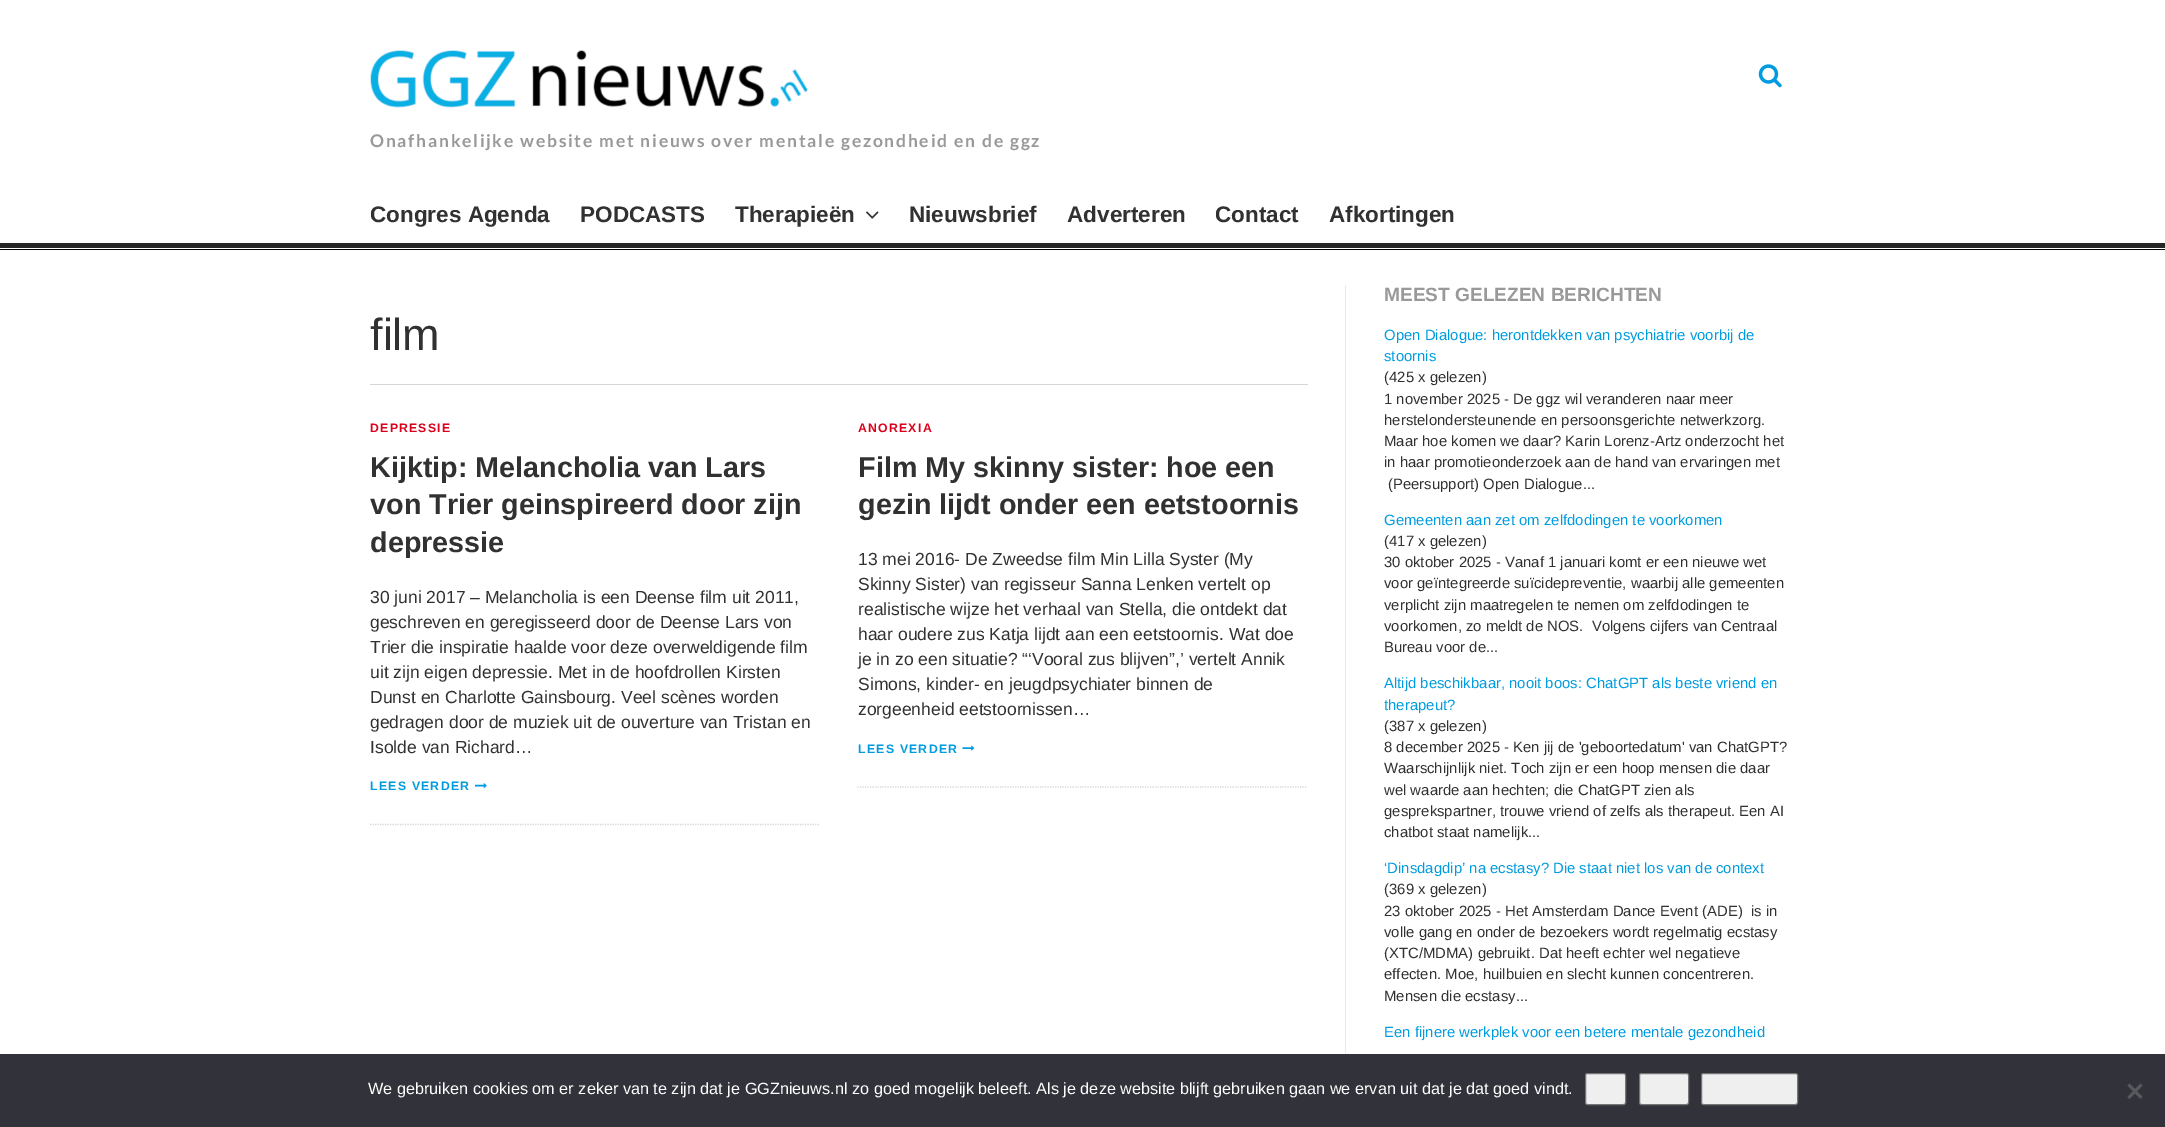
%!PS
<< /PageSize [2165 1127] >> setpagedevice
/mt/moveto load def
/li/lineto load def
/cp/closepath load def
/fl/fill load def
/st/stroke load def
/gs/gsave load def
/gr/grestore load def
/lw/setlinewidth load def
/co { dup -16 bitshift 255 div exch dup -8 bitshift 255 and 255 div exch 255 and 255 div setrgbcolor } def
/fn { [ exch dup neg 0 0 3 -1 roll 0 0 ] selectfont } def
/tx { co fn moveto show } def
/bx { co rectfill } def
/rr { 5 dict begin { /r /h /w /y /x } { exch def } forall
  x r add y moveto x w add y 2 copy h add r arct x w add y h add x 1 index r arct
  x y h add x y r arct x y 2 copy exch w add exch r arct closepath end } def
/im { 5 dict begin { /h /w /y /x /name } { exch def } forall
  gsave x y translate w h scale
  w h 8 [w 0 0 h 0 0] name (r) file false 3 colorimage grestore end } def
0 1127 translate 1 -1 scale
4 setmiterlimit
0 0 2165 1127 16#FFFFFF bx
0 243 2165 5 16#262626 bx
(media/1.raw) 1758 64 24 24 im
(media/2.raw) 370 50 438 58 im
(media/3.raw) 866 211 13 8 im
0 249 2165 1 16#000000 bx
370 384 938 1 16#D7D7D7 bx
1.2 lw
[1.25 1.25] 0 setdash
370 824.5 mt 820 824.5 li st
(media/4.raw) 475 783 12 6 im
857.5 787 mt 1307.5 787 li st
(media/5.raw) 962 745 13 6 im
1345 285 1 769 16#EBEBEB bx
0 1054 2165 73 16#32323A bx
16#EFEFEF co
1585.5 1073.5 40 31 2 rr gs fl gr
16#767676 co
1 lw
[] 0 setdash
st
16#EFEFEF co
1639.5 1073.5 49 31 2 rr gs fl gr
16#767676 co
st
16#EFEFEF co
1701.5 1073.5 96 31 2 rr gs fl gr
16#767676 co
st
16#59595D co
2140.5 1083.5 mt 2142.5 1085.5 li 2129.5 1099 li 2127.5 1097 li cp fl
2127.5 1085.5 mt 2129.5 1083.5 li 2142.5 1097 li 2140.5 1099 li cp fl
/Lato-Bold 17.5 fn
16#999999 co
370 147 mt 1.75 0 (Onafhankelijke website met nieuws over mentale gezondheid en de ggz) ashow
(Congres Agenda) 370 222 /LiberationSans-Bold 22.5 16#313131 tx
(PODCASTS) 580 222 /LiberationSans-Bold 22.5 16#313131 tx
(Therapieën) 735 222 /LiberationSans-Bold 22.5 16#313131 tx
(Nieuwsbrief) 909 222 /LiberationSans-Bold 22.5 16#313131 tx
(Adverteren) 1067 222 /LiberationSans-Bold 22.5 16#313131 tx
(Contact) 1215 222 /LiberationSans-Bold 22.5 16#313131 tx
(Afkortingen) 1329 222 /LiberationSans-Bold 22.5 16#313131 tx
(film) 370 350 /LiberationSans-Regular 45 16#313131 tx
/LiberationSans-Bold 12.25 fn
16#DB001B co
370 432 mt 1.25 0 (DEPRESSIE) ashow
(Kijktip: Melancholia van Lars) 370 477 /LiberationSans-Bold 28.75 16#313131 tx
(von Trier geinspireerd door zijn) 370 514 /LiberationSans-Bold 28.75 16#313131 tx
(depressie) 370 552 /LiberationSans-Bold 28.75 16#313131 tx
(30 juni 2017 – Melancholia is een Deense film uit 2011,) 370 603 /LiberationSans-Regular 17.5 16#313131 tx
(geschreven en geregisseerd door de Deense Lars von) 370 628 /LiberationSans-Regular 17.5 16#313131 tx
(Trier die inspiratie haalde voor deze overweldigende film) 370 653 /LiberationSans-Regular 17.5 16#313131 tx
(uit zijn eigen depressie. Met in de hoofdrollen Kirsten) 370 678 /LiberationSans-Regular 17.5 16#313131 tx
(Dunst en Charlotte Gainsbourg. Veel scènes worden) 370 703 /LiberationSans-Regular 17.5 16#313131 tx
(gedragen door de muziek uit de ouverture van Tristan en) 370 728 /LiberationSans-Regular 17.5 16#313131 tx
(Isolde van Richard…) 370 753 /LiberationSans-Regular 17.5 16#313131 tx
/LiberationSans-Bold 12.25 fn
16#009CDF co
370 790 mt 1.25 0 (LEES VERDER) ashow
16#DB001B co
858 432 mt 1.25 0 (ANOREXIA) ashow
(Film My skinny sister: hoe een) 858 477 /LiberationSans-Bold 28.75 16#313131 tx
(gezin lijdt onder een eetstoornis) 858 514 /LiberationSans-Bold 28.75 16#313131 tx
(13 mei 2016- De Zweedse film Min Lilla Syster \(My) 858 565 /LiberationSans-Regular 17.5 16#313131 tx
(Skinny Sister\) van regisseur Sanna Lenken vertelt op) 858 590 /LiberationSans-Regular 17.5 16#313131 tx
(realistische wijze het verhaal van Stella, die ontdekt dat) 858 615 /LiberationSans-Regular 17.5 16#313131 tx
(haar oudere zus Katja lijdt aan een eetstoornis. Wat doe) 858 640 /LiberationSans-Regular 17.5 16#313131 tx
(je in zo een situatie? “‘Vooral zus blijven”,’ vertelt Annik) 858 665 /LiberationSans-Regular 17.5 16#313131 tx
(Simons, kinder- en jeugdpsychiater binnen de) 858 690 /LiberationSans-Regular 17.5 16#313131 tx
(zorgeenheid eetstoornissen…) 858 715 /LiberationSans-Regular 17.5 16#313131 tx
/LiberationSans-Bold 12.25 fn
16#009CDF co
858 753 mt 1.25 0 (LEES VERDER) ashow
(MEEST GELEZEN BERICHTEN) 1384 301 /LiberationSans-Bold 19.1 16#999999 tx
(Open Dialogue: herontdekken van psychiatrie voorbij de) 1384 340 /LiberationSans-Regular 14.9 16#009CDF tx
(stoornis) 1384 361 /LiberationSans-Regular 14.9 16#009CDF tx
(\(425 x gelezen\)) 1384 382 /LiberationSans-Regular 14.9 16#313131 tx
(1 november 2025 - De ggz wil veranderen naar meer) 1384 404 /LiberationSans-Regular 14.9 16#313131 tx
(herstelondersteunende en persoonsgerichte netwerkzorg.) 1384 425 /LiberationSans-Regular 14.9 16#313131 tx
(Maar hoe komen we daar? Karin Lorenz-Artz onderzocht het) 1384 446 /LiberationSans-Regular 14.9 16#313131 tx
(in haar promotieonderzoek aan de hand van ervaringen met) 1384 467 /LiberationSans-Regular 14.9 16#313131 tx
(\(Peersupport\) Open Dialogue...) 1388 489 /LiberationSans-Regular 14.9 16#313131 tx
(Gemeenten aan zet om zelfdodingen te voorkomen) 1384 525 /LiberationSans-Regular 14.9 16#009CDF tx
(\(417 x gelezen\)) 1384 546 /LiberationSans-Regular 14.9 16#313131 tx
(30 oktober 2025 - Vanaf 1 januari komt er een nieuwe wet) 1384 567 /LiberationSans-Regular 14.9 16#313131 tx
(voor geïntegreerde suïcidepreventie, waarbij alle gemeenten) 1384 588 /LiberationSans-Regular 14.9 16#313131 tx
(verplicht zijn maatregelen te nemen om zelfdodingen te) 1384 610 /LiberationSans-Regular 14.9 16#313131 tx
(voorkomen, zo meldt de NOS.  Volgens cijfers van Centraal) 1384 631 /LiberationSans-Regular 14.9 16#313131 tx
(Bureau voor de...) 1384 652 /LiberationSans-Regular 14.9 16#313131 tx
(Altijd beschikbaar, nooit boos: ChatGPT als beste vriend en) 1384 688 /LiberationSans-Regular 14.9 16#009CDF tx
(therapeut?) 1384 710 /LiberationSans-Regular 14.9 16#009CDF tx
(\(387 x gelezen\)) 1384 731 /LiberationSans-Regular 14.9 16#313131 tx
(8 december 2025 - Ken jij de 'geboortedatum' van ChatGPT?) 1384 752 /LiberationSans-Regular 14.9 16#313131 tx
(Waarschijnlijk niet. Toch zijn er een hoop mensen die daar) 1384 773 /LiberationSans-Regular 14.9 16#313131 tx
(wel waarde aan hechten; die ChatGPT zien als) 1384 795 /LiberationSans-Regular 14.9 16#313131 tx
(gesprekspartner, trouwe vriend of zelfs als therapeut. Een AI) 1384 816 /LiberationSans-Regular 14.9 16#313131 tx
(chatbot staat namelijk...) 1384 837 /LiberationSans-Regular 14.9 16#313131 tx
(‘Dinsdagdip’ na ecstasy? Die staat niet los van de context) 1384 873 /LiberationSans-Regular 14.9 16#009CDF tx
(\(369 x gelezen\)) 1384 894 /LiberationSans-Regular 14.9 16#313131 tx
(23 oktober 2025 - Het Amsterdam Dance Event \(ADE\)  is in) 1384 916 /LiberationSans-Regular 14.9 16#313131 tx
(volle gang en onder de bezoekers wordt regelmatig ecstasy) 1384 937 /LiberationSans-Regular 14.9 16#313131 tx
(\(XTC/MDMA\) gebruikt. Dat heeft echter wel negatieve) 1384 958 /LiberationSans-Regular 14.9 16#313131 tx
(effecten. Moe, huilbuien en slecht kunnen concentreren.) 1384 979 /LiberationSans-Regular 14.9 16#313131 tx
(Mensen die ecstasy...) 1384 1001 /LiberationSans-Regular 14.9 16#313131 tx
(Een fijnere werkplek voor een betere mentale gezondheid) 1384 1037 /LiberationSans-Regular 14.9 16#009CDF tx
(We gebruiken cookies om er zeker van te zijn dat je GGZnieuws.nl zo goed mogelijk beleeft. Als je deze website blijft gebruiken gaan we ervan uit dat je dat goed vindt.) 368 1094 /LiberationSans-Regular 16.25 16#FFFFFF tx
showpage
